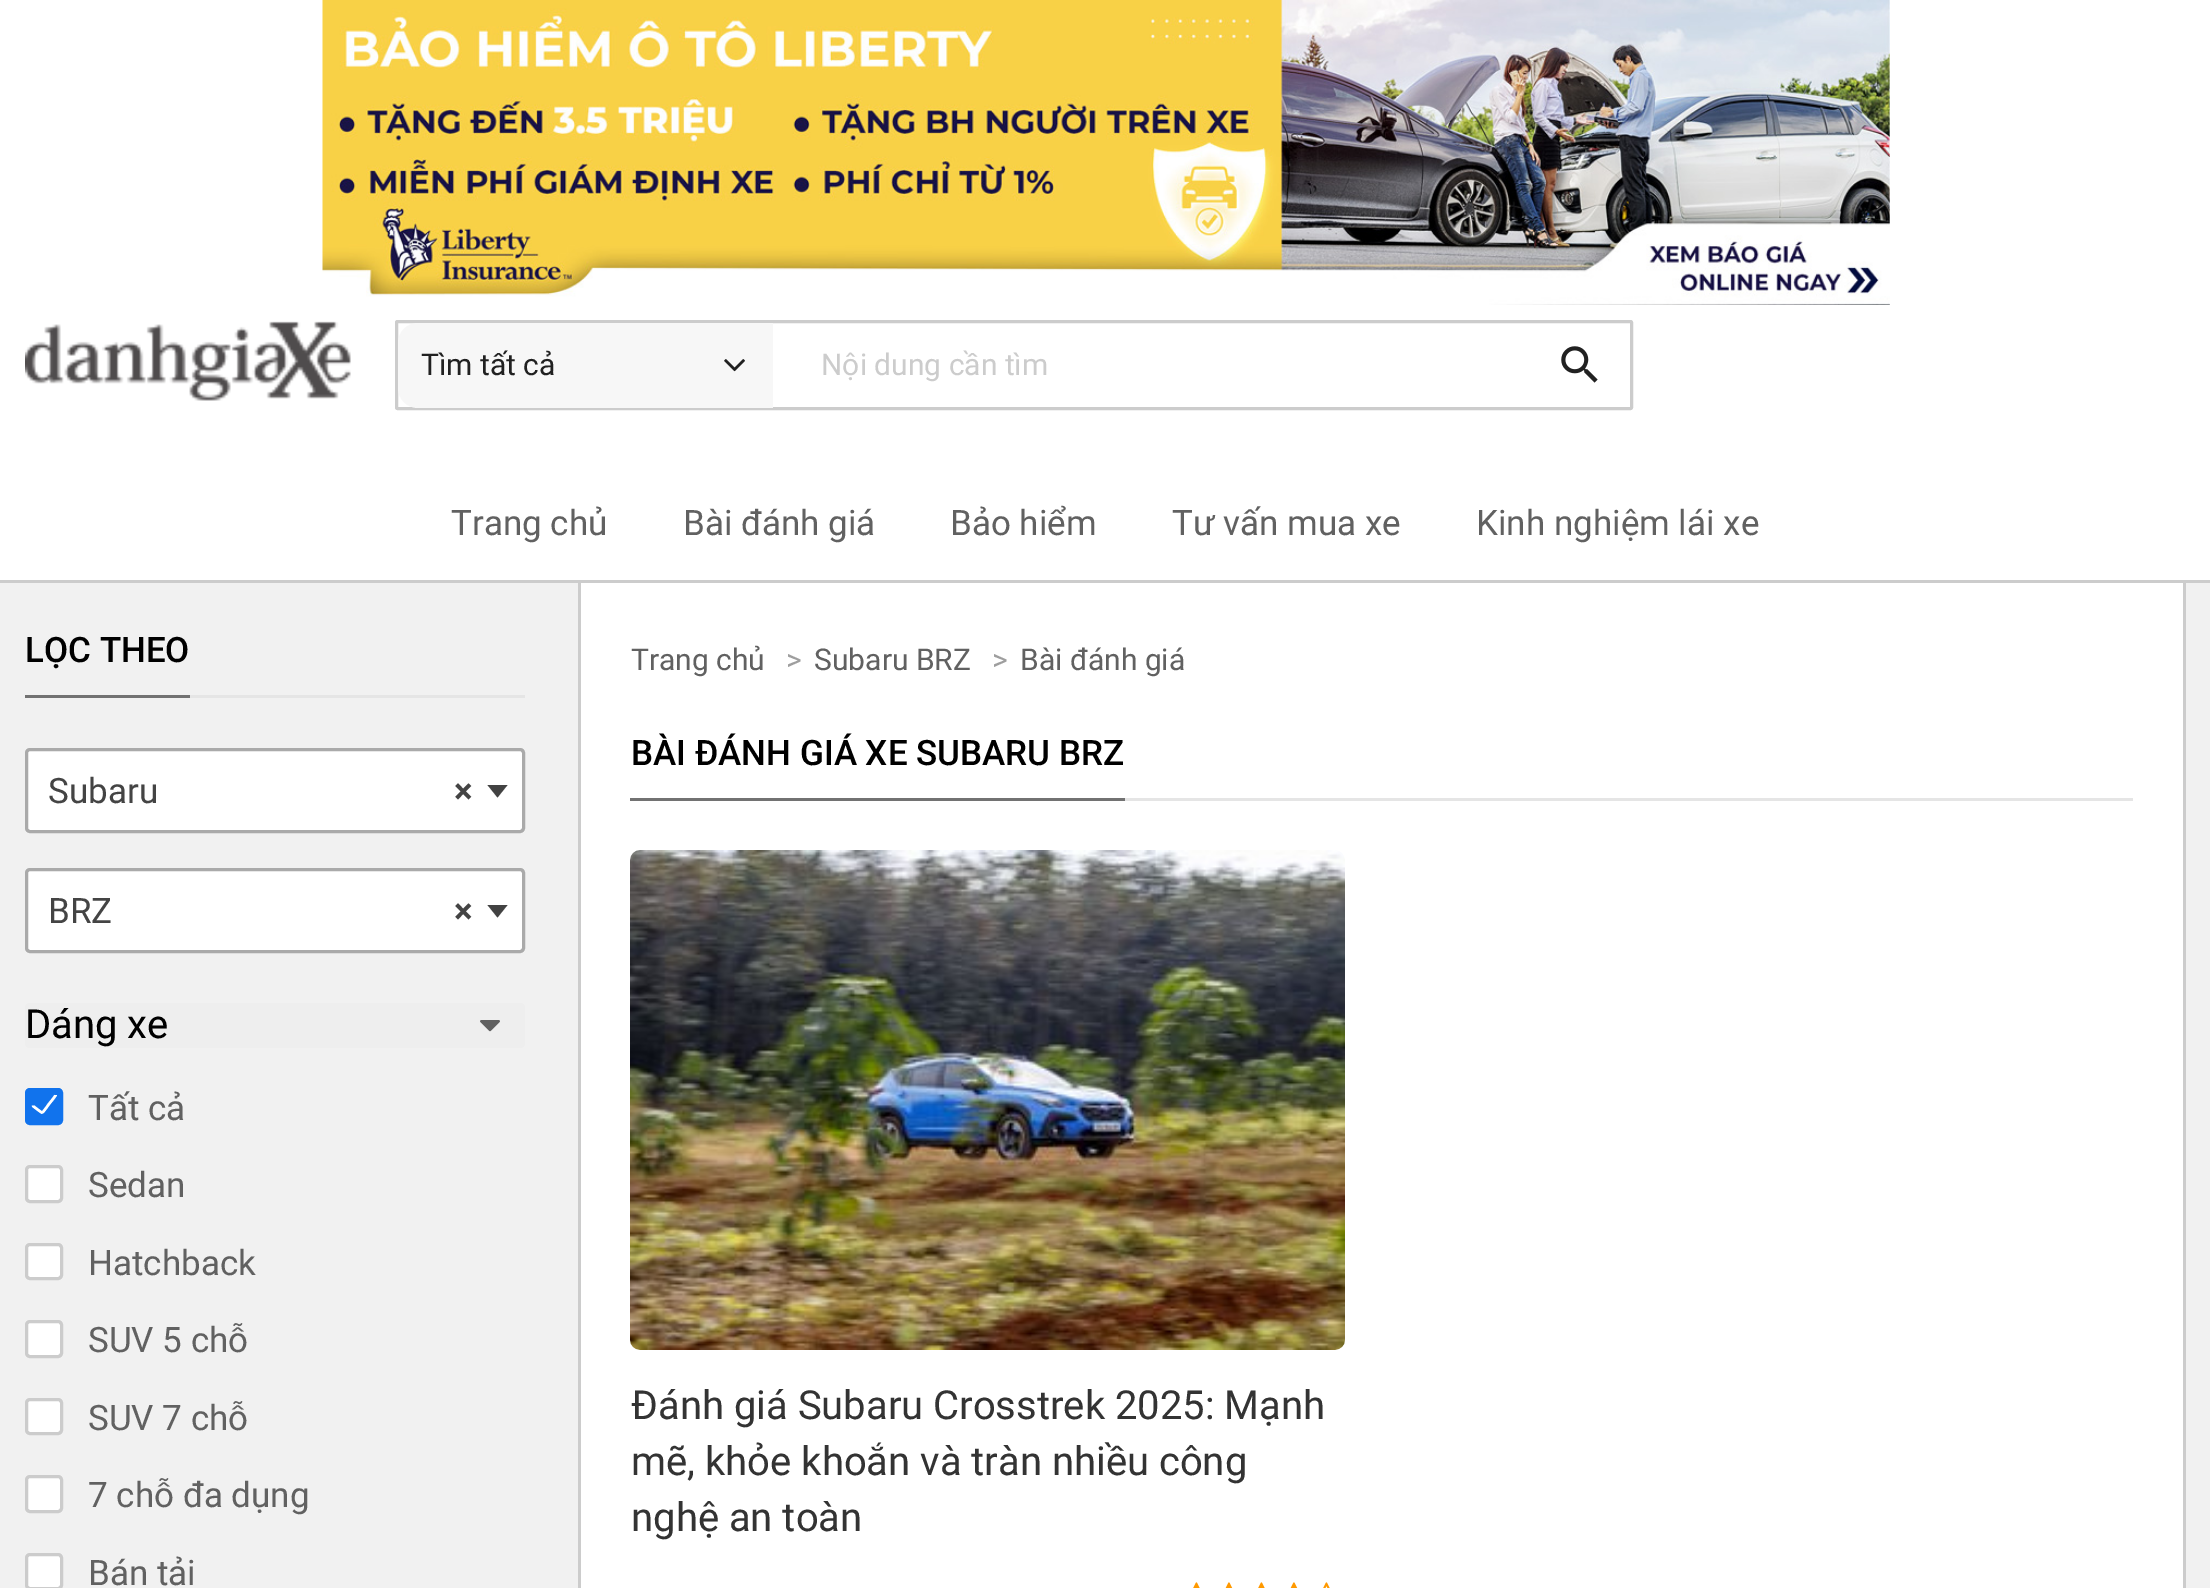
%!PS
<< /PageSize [2210 1588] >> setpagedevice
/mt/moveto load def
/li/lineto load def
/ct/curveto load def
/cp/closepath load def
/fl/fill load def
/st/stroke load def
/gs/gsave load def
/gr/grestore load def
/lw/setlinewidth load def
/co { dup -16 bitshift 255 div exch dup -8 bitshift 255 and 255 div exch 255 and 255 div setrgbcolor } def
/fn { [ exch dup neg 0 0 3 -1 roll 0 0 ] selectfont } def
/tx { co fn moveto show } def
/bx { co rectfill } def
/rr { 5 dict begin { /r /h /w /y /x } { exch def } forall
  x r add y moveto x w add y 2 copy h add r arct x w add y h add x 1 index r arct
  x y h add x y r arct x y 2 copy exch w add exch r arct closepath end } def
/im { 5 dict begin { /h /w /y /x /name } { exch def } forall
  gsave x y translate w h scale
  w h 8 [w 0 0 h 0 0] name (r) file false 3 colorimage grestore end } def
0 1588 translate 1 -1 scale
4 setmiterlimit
0 0 2210 1588 16#F1F1F1 bx
0 0 2210 580 16#FFFFFF bx
0 580 2210 3 16#CCCCCC bx
(media/1.raw) 322 0 1568 305 im
(media/2.raw) 25 321 326 80 im
3 lw
396.5 321.5 1235 87 1 rr st
16#F7F7F7 co
418 323 mt 773 323 li 773 408 li 418 408 li 407 408 398 399 398 388 ct 398 343 li 398 332 407 323 418 323 ct cp fl
(media/3.raw) 724 359 21 13 im
(media/4.raw) 1561 346 37 37 im
190 695 335 3 16#E5E5E5 bx
25 695 165 3 16#727272 bx
16#FFFFFF co
26.5 749.5 497 82 3.5 rr gs fl gr
16#AAAAAA co
st
16#424242 co
487.5 785 mt 507.5 785 li 497.5 797.5 li cp fl
16#FFFFFF co
26.5 869.5 497 82 3.5 rr gs fl gr
16#AAAAAA co
st
16#424242 co
487.5 905 mt 507.5 905 li 497.5 917.5 li cp fl
16#EEEEEE co
25 1003 500 45 5 rr fl
(media/5.raw) 480 1020 20 12 im
16#1173ED co
27.5 1090.5 33 32 2.5 rr gs fl gr
5 lw
st
16#FFFFFF co
2.5 lw
55.5 1095 mt 55.5 1096.5 50 1102.5 49 1104 ct 45 1109.5 li 41.5 1114 42.5 1113 37.5 1109.5 ct 36.5 1108.5 33 1106.5 33 1105.5 ct st
26.5 1166.5 35 35 3.5 rr gs fl gr
16#CCCCCC co
3 lw
st
16#FFFFFF co
26.5 1244.5 35 34 3.5 rr gs fl gr
16#CCCCCC co
st
16#FFFFFF co
26.5 1321.5 35 35 3.5 rr gs fl gr
16#CCCCCC co
st
16#FFFFFF co
26.5 1399.5 35 34 3.5 rr gs fl gr
16#CCCCCC co
st
16#FFFFFF co
26.5 1476.5 35 35 3.5 rr gs fl gr
16#CCCCCC co
st
16#FFFFFF co
26.5 1554.5 35 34 3.5 rr gs fl gr
16#CCCCCC co
st
581 583 1602 1005 16#FFFFFF bx
2183 583 3 1005 16#CCCCCC bx
578 583 3 1005 16#CCCCCC bx
1125 798 1008 3 16#E5E5E5 bx
630 798 495 3 16#727272 bx
(media/6.raw) 630 850 715 500 im
(media/7.raw) 1193 1582 7 6 im
(media/8.raw) 1225 1582 8 6 im
(media/7.raw) 1258 1582 7 6 im
(media/8.raw) 1290 1582 8 6 im
(media/9.raw) 1323 1582 7 6 im
(Tìm tất cả) 421 375 /Roboto-Regular 30 16#212121 tx
(Nội dung cần tìm) 821 375 /Roboto-Regular 30 16#CCCCCC tx
(Trang chủ) 451 535 /Roboto-Regular 35 16#616161 tx
(Bài đánh giá) 683 535 /Roboto-Regular 35 16#616161 tx
(Bảo hiểm) 950 535 /Roboto-Regular 35 16#616161 tx
(Tư vấn mua xe) 1172 535 /Roboto-Regular 35 16#616161 tx
(Kinh nghiệm lái xe) 1476 535 /Roboto-Regular 35 16#616161 tx
(LỌC THEO) 25 662 /Roboto-Medium 35 16#000000 tx
(Subaru) 48 803 /Roboto-Regular 35 16#444444 tx
(×) 454 803 /Roboto-Bold 35 16#444444 tx
(BRZ) 48 923 /Roboto-Regular 35 16#444444 tx
(×) 454 923 /Roboto-Bold 35 16#444444 tx
(Dáng xe) 25 1038 /Roboto-Regular 40 16#000000 tx
(Tất cả) 88 1120 /Roboto-Regular 35 16#616161 tx
(Sedan) 88 1197 /Roboto-Regular 35 16#616161 tx
(Hatchback) 88 1275 /Roboto-Regular 35 16#616161 tx
(SUV 5 chỗ) 88 1352 /Roboto-Regular 35 16#616161 tx
(SUV 7 chỗ) 88 1430 /Roboto-Regular 35 16#616161 tx
(7 chỗ đa dụng) 88 1507 /Roboto-Regular 35 16#616161 tx
(Bán tải) 88 1585 /Roboto-Regular 35 16#616161 tx
(Trang chủ) 631 670 /Roboto-Regular 30 16#616161 tx
(>) 786 670 /Roboto-Regular 30 16#9E9E9E tx
(Subaru BRZ) 814 670 /Roboto-Regular 30 16#616161 tx
(>) 992 670 /Roboto-Regular 30 16#9E9E9E tx
(Bài đánh giá) 1020 670 /Roboto-Regular 30 16#616161 tx
(BÀI ĐÁNH GIÁ XE SUBARU BRZ) 631 765 /Roboto-Medium 35 16#000000 tx
(Đánh giá Subaru Crosstrek 2025: Mạnh) 631 1419 /Roboto-Regular 40 16#333333 tx
(mẽ, khỏe khoắn và tràn nhiều công) 631 1475 /Roboto-Regular 40 16#333333 tx
(nghệ an toàn) 631 1531 /Roboto-Regular 40 16#333333 tx
showpage
